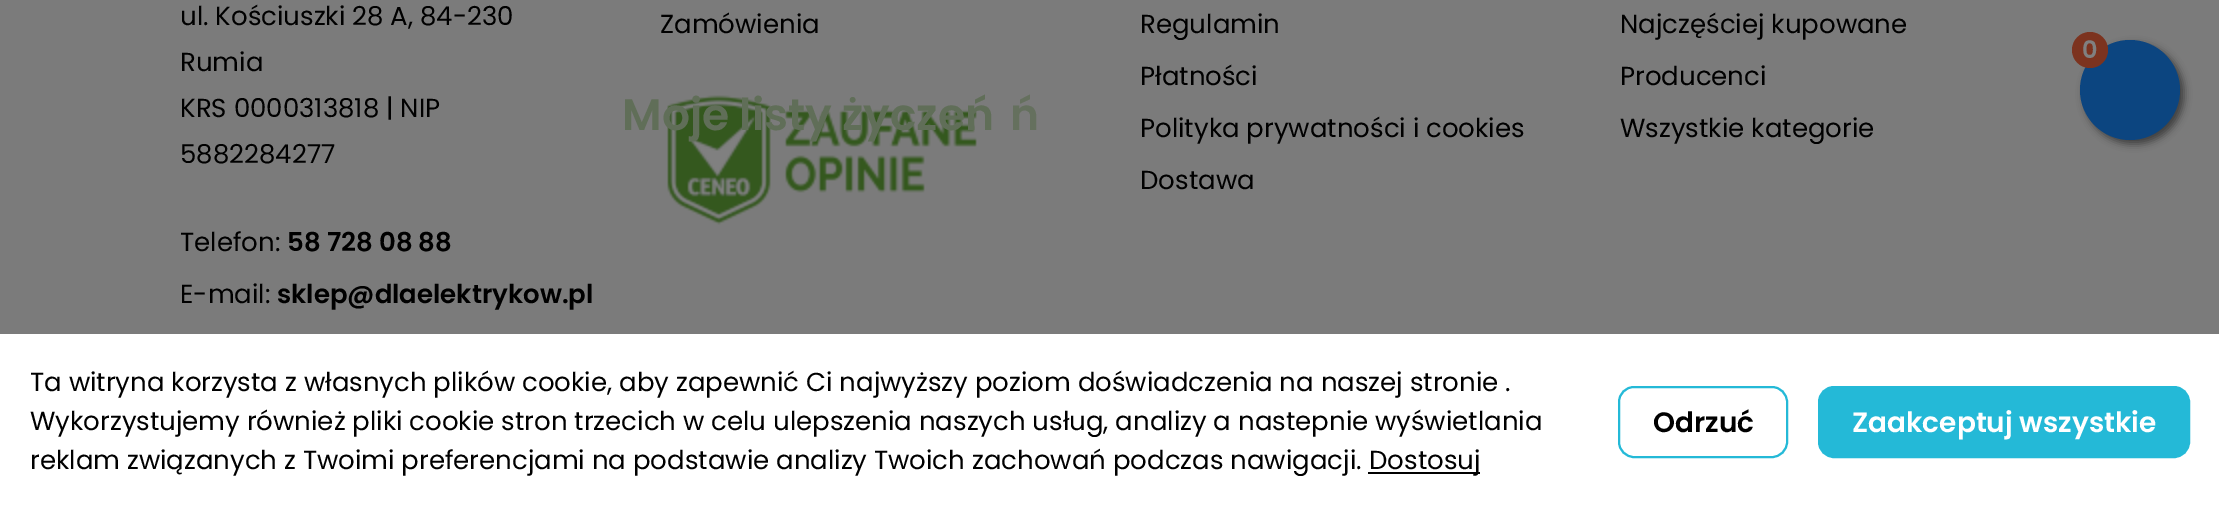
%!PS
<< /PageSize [2219 510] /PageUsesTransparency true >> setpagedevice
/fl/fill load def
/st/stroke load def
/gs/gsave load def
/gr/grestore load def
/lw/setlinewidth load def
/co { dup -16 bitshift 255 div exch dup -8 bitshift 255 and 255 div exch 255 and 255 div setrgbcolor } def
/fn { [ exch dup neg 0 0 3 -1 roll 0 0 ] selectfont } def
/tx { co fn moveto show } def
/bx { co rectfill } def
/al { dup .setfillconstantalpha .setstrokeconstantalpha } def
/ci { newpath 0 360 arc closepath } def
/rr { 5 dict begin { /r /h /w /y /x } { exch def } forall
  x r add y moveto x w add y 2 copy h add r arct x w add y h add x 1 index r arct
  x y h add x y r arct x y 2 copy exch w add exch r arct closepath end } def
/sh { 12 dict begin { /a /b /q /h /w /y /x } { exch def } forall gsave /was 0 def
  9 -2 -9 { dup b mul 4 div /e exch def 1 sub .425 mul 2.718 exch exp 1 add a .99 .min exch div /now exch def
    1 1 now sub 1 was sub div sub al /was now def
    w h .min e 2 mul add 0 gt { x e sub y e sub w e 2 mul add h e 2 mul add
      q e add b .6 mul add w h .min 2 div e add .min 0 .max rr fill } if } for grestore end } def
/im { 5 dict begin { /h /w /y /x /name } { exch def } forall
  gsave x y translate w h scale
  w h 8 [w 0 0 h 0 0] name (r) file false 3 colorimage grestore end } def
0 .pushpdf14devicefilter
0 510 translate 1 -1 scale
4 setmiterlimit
0 0 2219 510 16#7B7B7B bx
(media/1.raw) 667 95 310 130 im
16#000000 co
2084 44 100 100 50 4 .5 sh
16#0C4580 co
2130 90 50 ci fl
16#7C331F co
2090 50 18 ci fl
0 334 2219 176 16#FFFFFF bx
1368 472 112 2 16#000000 bx
16#24B9D7 co
2 lw
1619 387 168 70 15 rr st
1819 387 370 70 15 rr gs fl gr
st
(ul. Kościuszki 28 A, 84-230) 180 25 /Poppins-Regular 26 16#000000 tx
(Rumia) 180 71 /Poppins-Regular 26 16#000000 tx
(KRS 0000313818 | NIP) 180 117 /Poppins-Regular 26 16#000000 tx
(5882284277) 180 163 /Poppins-Regular 26 16#000000 tx
(Telefon:) 180 251 /Poppins-Regular 26 16#000000 tx
(58 728 08 88) 287 251 /Poppins-SemiBold 26 16#000000 tx
(E-mail:) 180 303 /Poppins-Regular 26 16#000000 tx
(sklep@dlaelektrykow.pl) 277 303 /Poppins-SemiBold 26 16#000000 tx
(Zamówienia) 660 33 /Poppins-Regular 26 16#000000 tx
(Regulamin) 1140 33 /Poppins-Regular 26 16#000000 tx
(Płatności) 1140 85 /Poppins-Regular 26 16#000000 tx
(Polityka prywatności i cookies) 1140 137 /Poppins-Regular 26 16#000000 tx
(Dostawa) 1140 189 /Poppins-Regular 26 16#000000 tx
(Najczęściej kupowane) 1620 33 /Poppins-Regular 26 16#000000 tx
(Producenci) 1620 85 /Poppins-Regular 26 16#000000 tx
(Wszystkie kategorie) 1620 137 /Poppins-Regular 26 16#000000 tx
(Moje listy życzeń) 622 130 /Poppins-SemiBold 44 16#606E58 tx
(ń) 1010 130 /Poppins-SemiBold 44 16#65705E tx
(0) 2082 58 /Poppins-SemiBold 24 16#808080 tx
(Ta witryna korzysta z własnych plików cookie, aby zapewnić Ci najwyższy poziom doświadczenia na naszej stronie .) 30 391 /Poppins-Regular 26 16#000000 tx
(Wykorzystujemy również pliki cookie stron trzecich w celu ulepszenia naszych usług, analizy a nastepnie wyświetlania) 30 430 /Poppins-Regular 26 16#000000 tx
(reklam związanych z Twoimi preferencjami na podstawie analizy Twoich zachowań podczas nawigacji.) 30 469 /Poppins-Regular 26 16#000000 tx
(Dostosuj) 1369 469 /Poppins-Regular 26 16#000000 tx
(Odrzuć) 1653 432 /Poppins-SemiBold 28 16#000000 tx
(Zaakceptuj wszystkie) 1852 432 /Poppins-SemiBold 28 16#FFFFFF tx
.poppdf14devicefilter showpage
